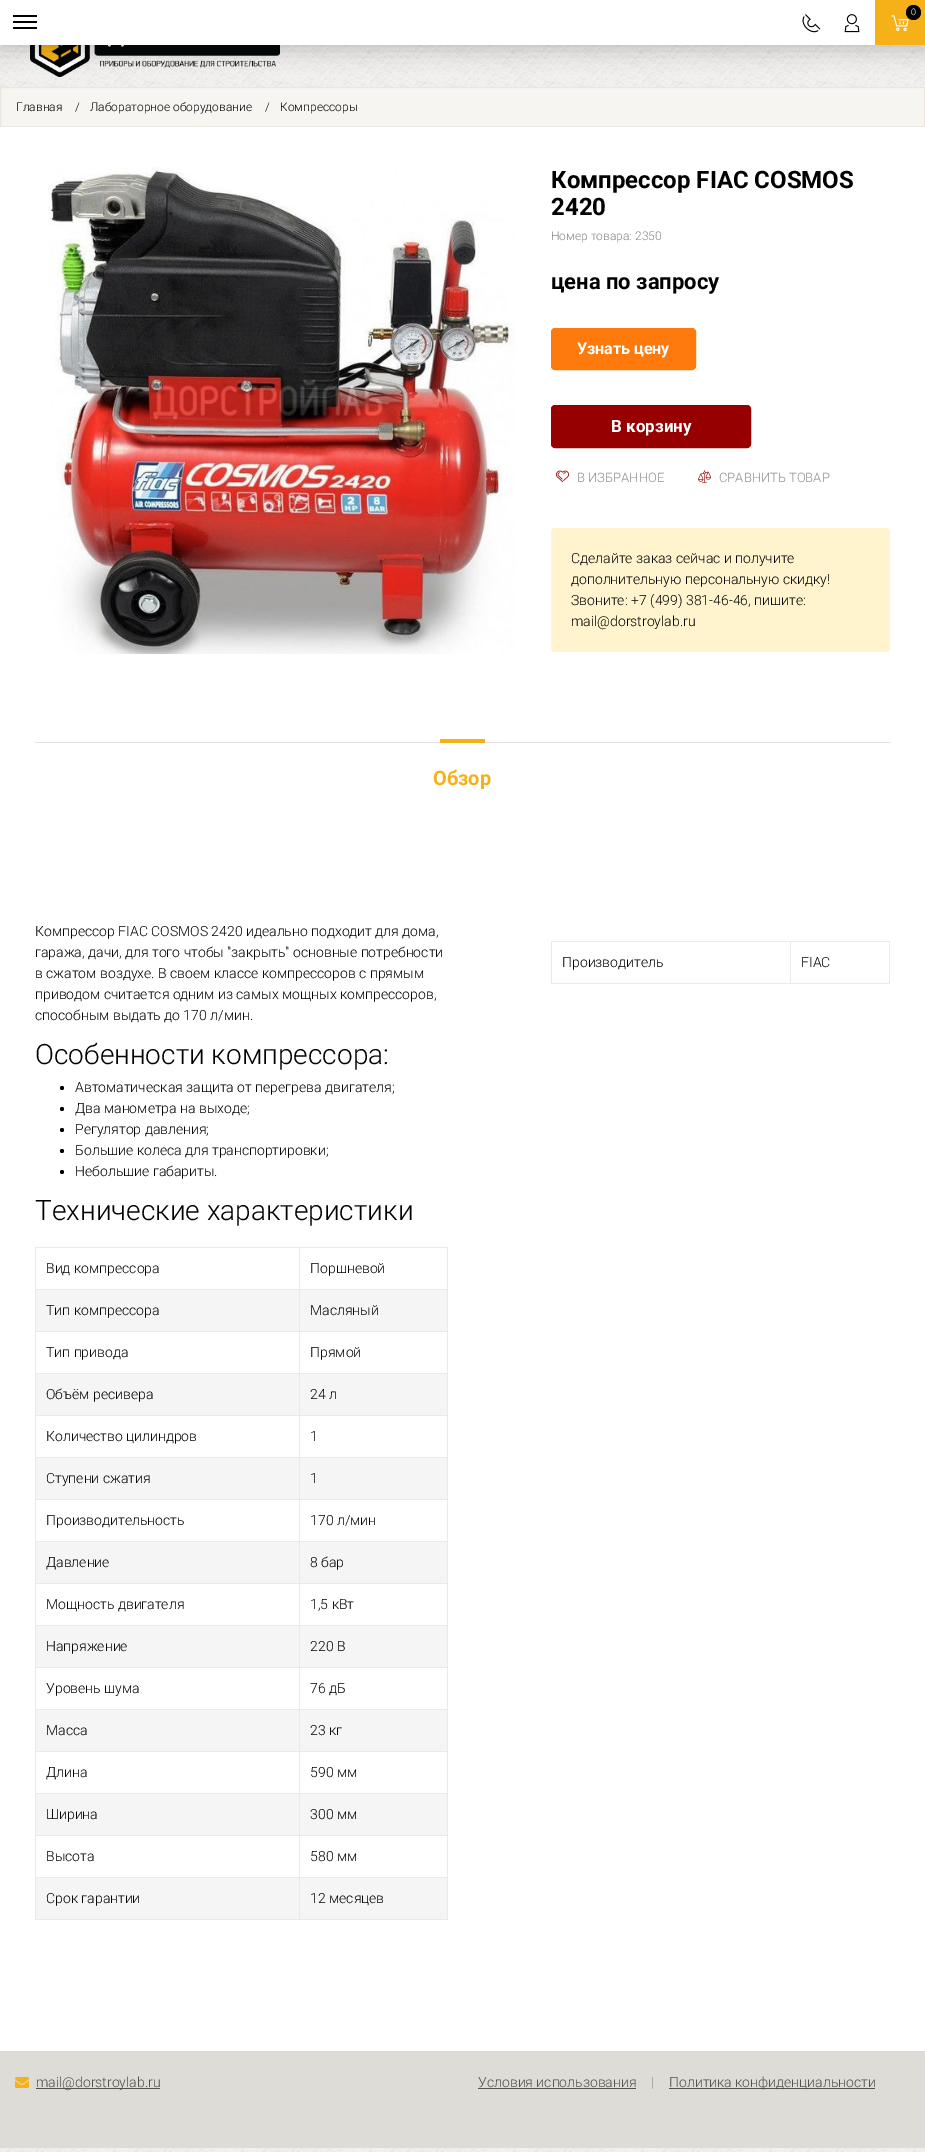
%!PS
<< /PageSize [925 2152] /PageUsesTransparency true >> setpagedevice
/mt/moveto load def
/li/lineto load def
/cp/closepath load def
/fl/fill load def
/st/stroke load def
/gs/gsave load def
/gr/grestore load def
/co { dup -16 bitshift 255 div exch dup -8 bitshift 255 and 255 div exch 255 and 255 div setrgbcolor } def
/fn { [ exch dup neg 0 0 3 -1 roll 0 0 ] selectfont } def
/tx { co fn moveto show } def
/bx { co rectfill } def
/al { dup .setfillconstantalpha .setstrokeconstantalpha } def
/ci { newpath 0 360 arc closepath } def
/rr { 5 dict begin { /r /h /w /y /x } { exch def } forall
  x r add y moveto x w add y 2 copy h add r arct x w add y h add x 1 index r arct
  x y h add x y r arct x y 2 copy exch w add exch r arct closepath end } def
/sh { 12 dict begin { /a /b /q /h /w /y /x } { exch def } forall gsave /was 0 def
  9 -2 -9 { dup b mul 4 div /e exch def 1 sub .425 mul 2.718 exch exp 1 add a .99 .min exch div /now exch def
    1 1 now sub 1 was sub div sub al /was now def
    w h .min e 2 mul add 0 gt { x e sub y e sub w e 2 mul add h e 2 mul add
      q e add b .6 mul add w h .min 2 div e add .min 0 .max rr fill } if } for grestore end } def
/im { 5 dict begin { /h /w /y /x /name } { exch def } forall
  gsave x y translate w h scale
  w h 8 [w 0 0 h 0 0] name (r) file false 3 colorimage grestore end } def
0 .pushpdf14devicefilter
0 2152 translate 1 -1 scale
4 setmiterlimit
0 0 925 2152 16#FFFFFF bx
(media/1.raw) 0 45 925 2107 im
(media/5.raw) 30 45 250 32 im
16#000000 co
-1 3 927 47 0 11 .2 sh
0 0 875 45 16#FFFFFF bx
875 0 50 45 16#F6B118 bx
(media/2.raw) 891 15 18 16 im
16#000000 co
913.5 12.5 7.5 ci fl
(media/3.raw) 802 14 19 19 im
(media/4.raw) 844 14 16 19 im
13 15 24 2 16#000000 bx
13 21 24 2 16#000000 bx
13 27 24 2 16#000000 bx
16#F7F5F2 co
.5 87.5 mt 924.5 87.5 li 924.5 126.5 li .5 126.5 li cp gs fl gr
16#EBE7DE co
st
0 127 925 1924 16#FFFFFF bx
(media/6.raw) 48 167 467 487 im
16#FF7A0D co
551.5 328.5 144 41 3.5 rr gs fl gr
st
16#970000 co
551.5 405.5 199 42 3.5 rr gs fl gr
st
(media/7.raw) 556 470 13 13 im
(media/8.raw) 698 470 13 13 im
16#FFF4CE co
551 528 339 124 4 rr fl
35 742 855 1 16#E1E1E1 bx
440 739 45 4 16#F6B118 bx
16#000000 co
62 1088 2 ci fl
62 1109 2 ci fl
62 1130 2 ci fl
62 1151 2 ci fl
62 1172 2 ci fl
299 1247 149 1 16#EAEAEA bx
299 1289 149 1 16#EAEAEA bx
36 1290 411 41 16#F5F5F5 bx
299 1331 149 1 16#EAEAEA bx
299 1373 149 1 16#EAEAEA bx
36 1374 411 41 16#F5F5F5 bx
299 1415 149 1 16#EAEAEA bx
299 1457 149 1 16#EAEAEA bx
36 1458 411 41 16#F5F5F5 bx
299 1499 149 1 16#EAEAEA bx
299 1541 149 1 16#EAEAEA bx
36 1542 411 41 16#F5F5F5 bx
299 1583 149 1 16#EAEAEA bx
299 1625 149 1 16#EAEAEA bx
36 1626 411 41 16#F5F5F5 bx
299 1667 149 1 16#EAEAEA bx
299 1709 149 1 16#EAEAEA bx
36 1710 411 41 16#F5F5F5 bx
299 1751 149 1 16#EAEAEA bx
299 1793 149 1 16#EAEAEA bx
36 1794 411 41 16#F5F5F5 bx
299 1835 149 1 16#EAEAEA bx
299 1877 149 1 16#EAEAEA bx
36 1878 411 41 16#F5F5F5 bx
447 1877 1 43 16#EAEAEA bx
299 1919 149 1 16#EAEAEA bx
299 1877 1 43 16#EAEAEA bx
35 1877 265 1 16#EAEAEA bx
299 1835 1 43 16#EAEAEA bx
35 1835 265 1 16#EAEAEA bx
299 1793 1 43 16#EAEAEA bx
35 1793 265 1 16#EAEAEA bx
299 1751 1 43 16#EAEAEA bx
35 1751 265 1 16#EAEAEA bx
299 1709 1 43 16#EAEAEA bx
35 1709 265 1 16#EAEAEA bx
299 1667 1 43 16#EAEAEA bx
35 1667 265 1 16#EAEAEA bx
299 1625 1 43 16#EAEAEA bx
35 1625 265 1 16#EAEAEA bx
299 1583 1 43 16#EAEAEA bx
35 1583 265 1 16#EAEAEA bx
299 1541 1 43 16#EAEAEA bx
35 1541 265 1 16#EAEAEA bx
299 1499 1 43 16#EAEAEA bx
35 1499 265 1 16#EAEAEA bx
299 1457 1 43 16#EAEAEA bx
35 1457 265 1 16#EAEAEA bx
299 1415 1 43 16#EAEAEA bx
35 1415 265 1 16#EAEAEA bx
299 1373 1 43 16#EAEAEA bx
35 1373 265 1 16#EAEAEA bx
299 1331 1 43 16#EAEAEA bx
35 1331 265 1 16#EAEAEA bx
299 1289 1 43 16#EAEAEA bx
35 1289 265 1 16#EAEAEA bx
299 1247 1 43 16#EAEAEA bx
35 1247 265 1 16#EAEAEA bx
35 1919 265 1 16#EAEAEA bx
35 1877 1 43 16#EAEAEA bx
35 1835 1 43 16#EAEAEA bx
35 1793 1 43 16#EAEAEA bx
35 1751 1 43 16#EAEAEA bx
35 1709 1 43 16#EAEAEA bx
35 1667 1 43 16#EAEAEA bx
35 1625 1 43 16#EAEAEA bx
35 1583 1 43 16#EAEAEA bx
35 1541 1 43 16#EAEAEA bx
35 1499 1 43 16#EAEAEA bx
35 1457 1 43 16#EAEAEA bx
35 1415 1 43 16#EAEAEA bx
35 1373 1 43 16#EAEAEA bx
35 1331 1 43 16#EAEAEA bx
35 1289 1 43 16#EAEAEA bx
35 1247 1 43 16#EAEAEA bx
447 1835 1 43 16#EAEAEA bx
447 1793 1 43 16#EAEAEA bx
447 1751 1 43 16#EAEAEA bx
447 1709 1 43 16#EAEAEA bx
447 1667 1 43 16#EAEAEA bx
447 1625 1 43 16#EAEAEA bx
447 1583 1 43 16#EAEAEA bx
447 1541 1 43 16#EAEAEA bx
447 1499 1 43 16#EAEAEA bx
447 1457 1 43 16#EAEAEA bx
447 1415 1 43 16#EAEAEA bx
447 1373 1 43 16#EAEAEA bx
447 1331 1 43 16#EAEAEA bx
447 1289 1 43 16#EAEAEA bx
447 1247 1 43 16#EAEAEA bx
790 941 100 1 16#EAEAEA bx
889 941 1 43 16#EAEAEA bx
790 983 100 1 16#EAEAEA bx
790 941 1 43 16#EAEAEA bx
551 941 240 1 16#EAEAEA bx
551 983 240 1 16#EAEAEA bx
551 941 1 43 16#EAEAEA bx
0 2051 925 97 16#DEDCD7 bx
(media/9.raw) 15 2077 14 11 im
36 2088 124 1 16#53514C bx
478 2088 158 1 16#53514C bx
669 2088 206 1 16#53514C bx
(0) 911 15 /Roboto-Light 9 16#FFFFFF tx
(Главная) 16 111 /Roboto-Light 12 16#000000 tx
(/) 75 111 /Roboto-Light 12 16#000000 tx
(Лабораторное оборудование) 90 111 /Roboto-Light 12 16#000000 tx
(/) 265 111 /Roboto-Light 12 16#000000 tx
(Компрессоры) 280 111 /Roboto-Light 12 16#000000 tx
(Компрессор FIAC COSMOS) 551 188 /Roboto-Bold 24 16#000000 tx
(2420) 551 215 /Roboto-Bold 24 16#000000 tx
(Номер товара: 2350) 551 240 /Roboto-Light 12 16#858585 tx
(цена по запросу) 551 289 /Roboto-Bold 22 16#000000 tx
(Узнать цену) 577 354 /Roboto-Bold 16 16#FFFFFF tx
(В корзину) 611 432 /Roboto-Bold 17 16#FFFFFF tx
(В ИЗБРАННОЕ) 577 482 /Roboto-Light 13 16#8C8C8C tx
(СРАВНИТЬ ТОВАР) 719 482 /Roboto-Light 13 16#8C8C8C tx
(Сделайте заказ сейчас и получите) 571 563 /Roboto-Light 14 16#000000 tx
(дополнительную персональную скидку!) 571 584 /Roboto-Light 14 16#000000 tx
(Звоните: +7 \(499\) 381-46-46, пишите:) 571 605 /Roboto-Light 14 16#000000 tx
(mail@dorstroylab.ru) 571 626 /Roboto-Light 14 16#000000 tx
(Обзор) 433 785 /Roboto-Bold 20 16#F6B118 tx
(Компрессор FIAC COSMOS 2420 идеально подходит для дома,) 35 936 /Roboto-Light 14 16#000000 tx
(гаража, дачи, для того чтобы "закрыть" основные потребности) 35 957 /Roboto-Light 14 16#000000 tx
(в сжатом воздухе. В своем классе компрессоров с прямым) 35 978 /Roboto-Light 14 16#000000 tx
(приводом считается одним из самых мощных компрессоров,) 35 999 /Roboto-Light 14 16#000000 tx
(способным выдать до 170 л/мин.) 35 1020 /Roboto-Light 14 16#000000 tx
(Особенности компрессора:) 35 1064 /Roboto-Light 28 16#000000 tx
(Автоматическая защита от перегрева двигателя;) 75 1092 /Roboto-Light 14 16#000000 tx
(Два манометра на выходе;) 75 1113 /Roboto-Light 14 16#000000 tx
(Регулятор давления;) 75 1134 /Roboto-Light 14 16#000000 tx
(Большие колеса для транспортировки;) 75 1155 /Roboto-Light 14 16#000000 tx
(Небольшие габариты.) 75 1176 /Roboto-Light 14 16#000000 tx
(Технические характеристики) 35 1220 /Roboto-Light 28 16#000000 tx
(Вид компрессора) 46 1273 /Roboto-Light 14 16#000000 tx
(Поршневой) 310 1273 /Roboto-Light 14 16#000000 tx
(Тип компрессора) 46 1315 /Roboto-Light 14 16#000000 tx
(Масляный) 310 1315 /Roboto-Light 14 16#000000 tx
(Тип привода) 46 1357 /Roboto-Light 14 16#000000 tx
(Прямой) 310 1357 /Roboto-Light 14 16#000000 tx
(Объём ресивера) 46 1399 /Roboto-Light 14 16#000000 tx
(24 л) 310 1399 /Roboto-Light 14 16#000000 tx
(Количество цилиндров) 46 1441 /Roboto-Light 14 16#000000 tx
(1) 310 1441 /Roboto-Light 14 16#000000 tx
(Ступени сжатия) 46 1483 /Roboto-Light 14 16#000000 tx
(1) 310 1483 /Roboto-Light 14 16#000000 tx
(Производительность) 46 1525 /Roboto-Light 14 16#000000 tx
(170 л/мин) 310 1525 /Roboto-Light 14 16#000000 tx
(Давление) 46 1567 /Roboto-Light 14 16#000000 tx
(8 бар) 310 1567 /Roboto-Light 14 16#000000 tx
(Мощность двигателя) 46 1609 /Roboto-Light 14 16#000000 tx
(1,5 кВт) 310 1609 /Roboto-Light 14 16#000000 tx
(Напряжение) 46 1651 /Roboto-Light 14 16#000000 tx
(220 В) 310 1651 /Roboto-Light 14 16#000000 tx
(Уровень шума) 46 1693 /Roboto-Light 14 16#000000 tx
(76 дБ) 310 1693 /Roboto-Light 14 16#000000 tx
(Масса) 46 1735 /Roboto-Light 14 16#000000 tx
(23 кг) 310 1735 /Roboto-Light 14 16#000000 tx
(Длина) 46 1777 /Roboto-Light 14 16#000000 tx
(590 мм) 310 1777 /Roboto-Light 14 16#000000 tx
(Ширина) 46 1819 /Roboto-Light 14 16#000000 tx
(300 мм) 310 1819 /Roboto-Light 14 16#000000 tx
(Высота) 46 1861 /Roboto-Light 14 16#000000 tx
(580 мм) 310 1861 /Roboto-Light 14 16#000000 tx
(Срок гарантии) 46 1903 /Roboto-Light 14 16#000000 tx
(12 месяцев) 310 1903 /Roboto-Light 14 16#000000 tx
(Производитель) 562 967 /Roboto-Light 14 16#000000 tx
(FIAC) 801 967 /Roboto-Light 14 16#000000 tx
(mail@dorstroylab.ru) 36 2087 /Roboto-Light 14 16#53514C tx
(Условия использования) 478 2087 /Roboto-Light 14 16#53514C tx
(|) 651 2087 /Roboto-Light 14 16#999792 tx
(Политика конфиденциальности) 669 2087 /Roboto-Light 14 16#53514C tx
.poppdf14devicefilter showpage
